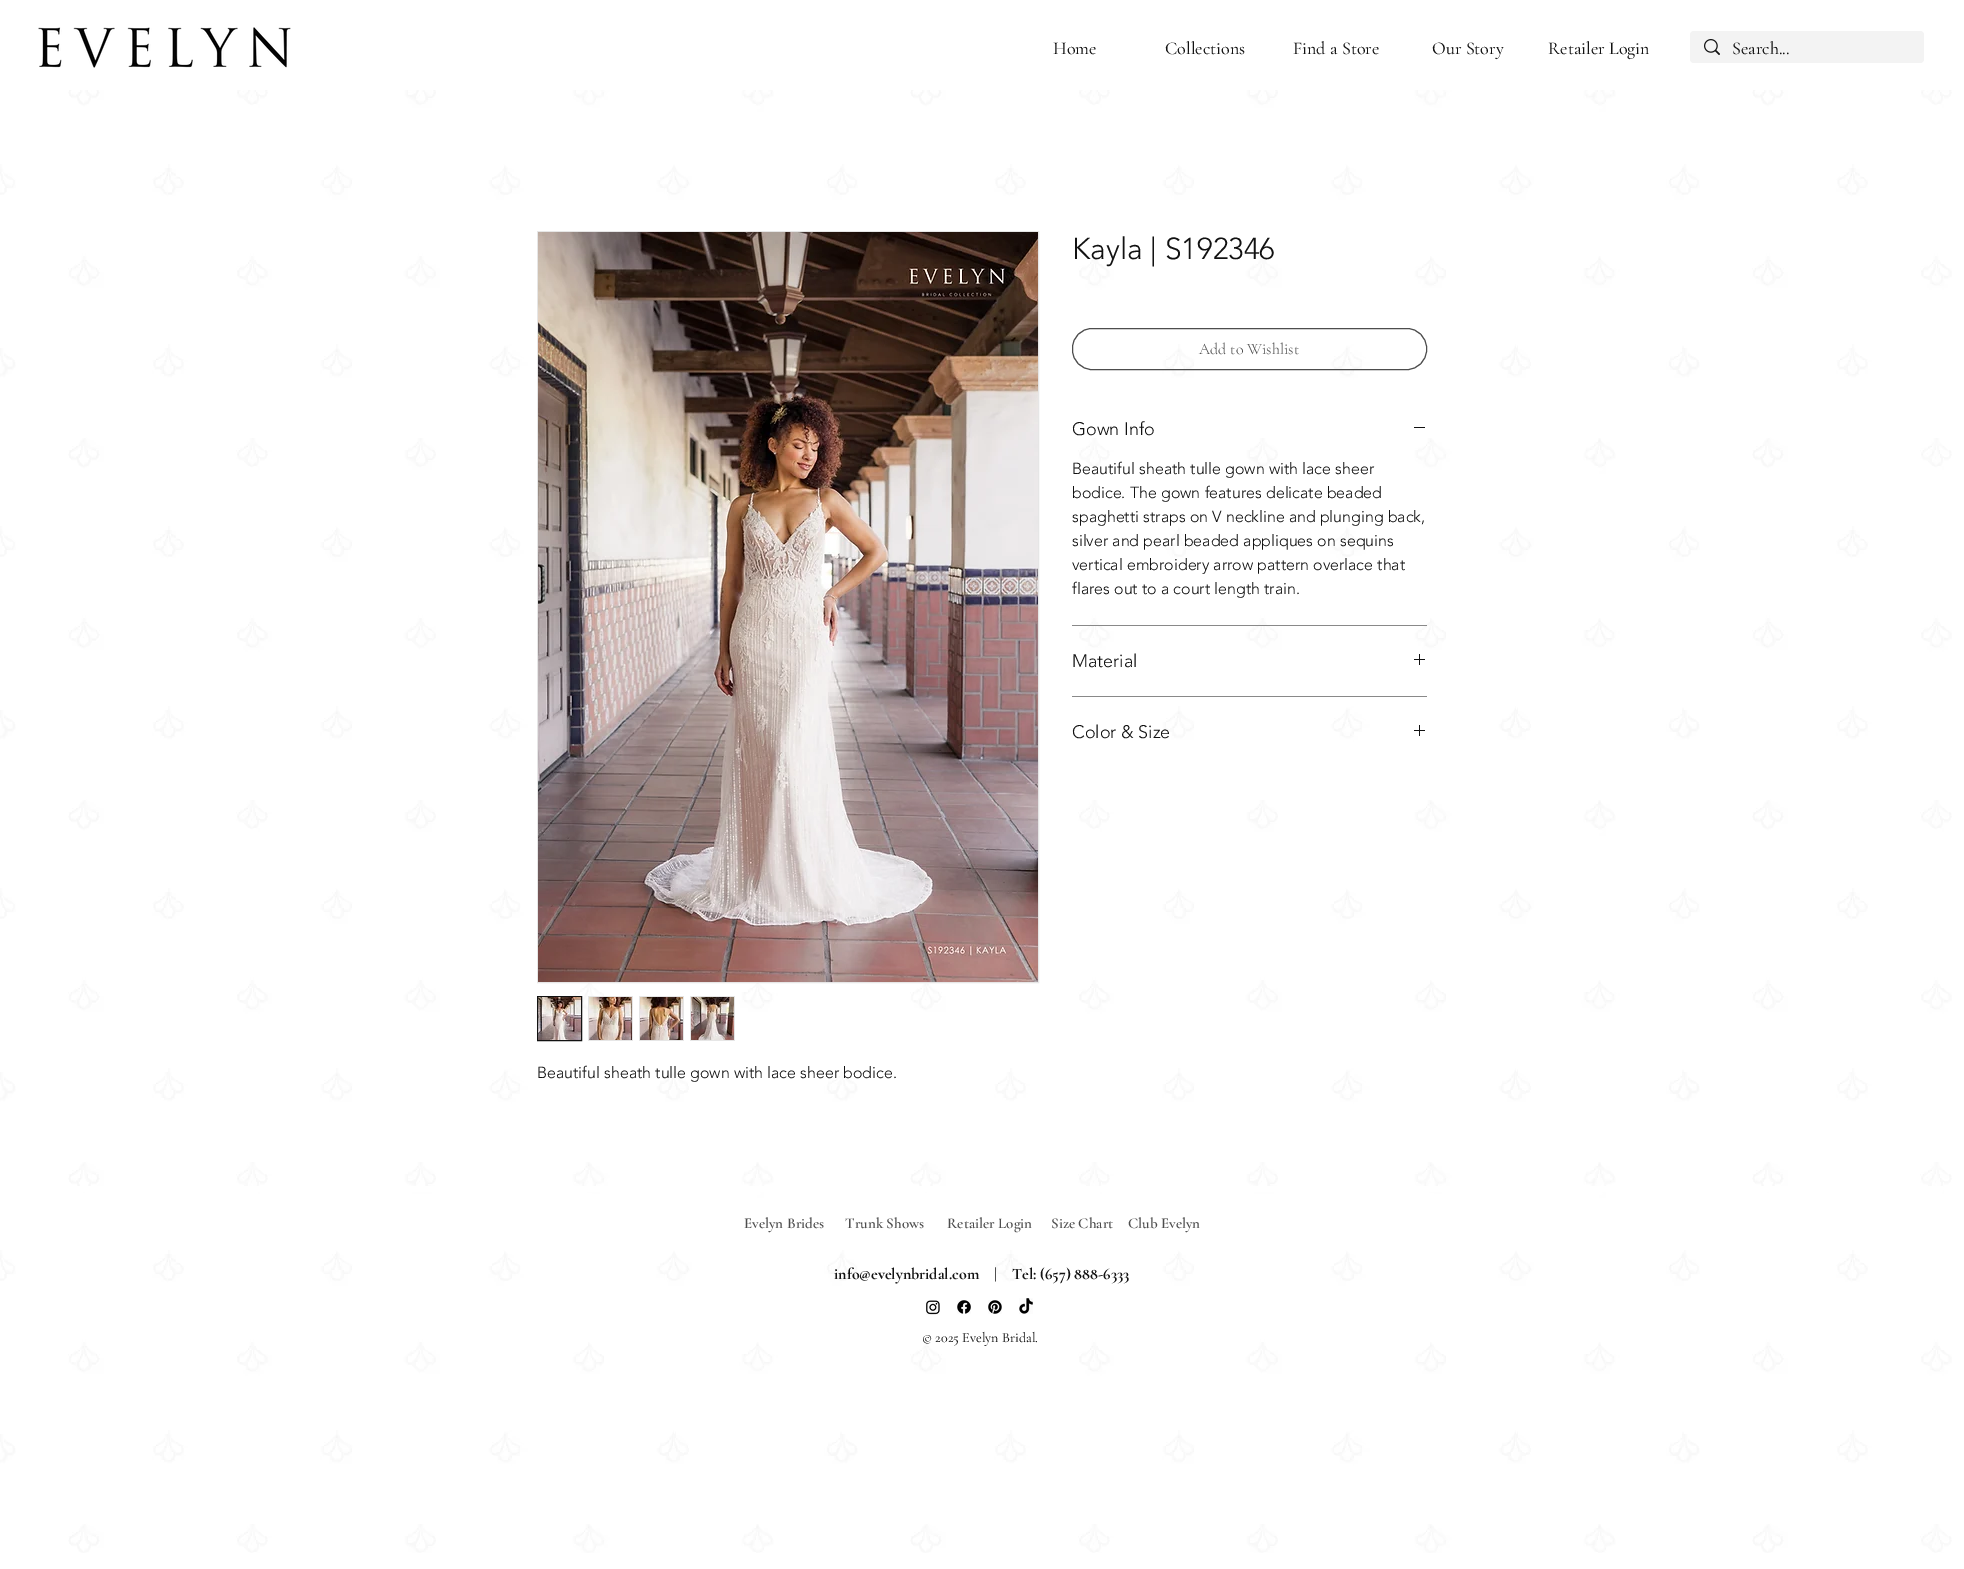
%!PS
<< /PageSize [1964 1569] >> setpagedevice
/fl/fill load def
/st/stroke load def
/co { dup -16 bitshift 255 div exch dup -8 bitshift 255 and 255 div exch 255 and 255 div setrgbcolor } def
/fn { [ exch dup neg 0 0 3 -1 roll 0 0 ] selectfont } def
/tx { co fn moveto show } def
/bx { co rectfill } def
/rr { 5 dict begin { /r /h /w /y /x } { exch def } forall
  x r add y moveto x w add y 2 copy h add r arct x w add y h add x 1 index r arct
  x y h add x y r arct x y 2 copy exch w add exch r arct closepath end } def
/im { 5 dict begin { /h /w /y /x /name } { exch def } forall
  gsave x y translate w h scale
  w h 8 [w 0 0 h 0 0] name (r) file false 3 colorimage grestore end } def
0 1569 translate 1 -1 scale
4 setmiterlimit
0 0 1964 1569 16#FFFFFF bx
(media/1.raw) 38 27 253 41 im
16#F3F3F3 co
1690 31 234 32 4 rr fl
(media/2.raw) 1704 39 16 16 im
(media/13.raw) 0 90 1952 1463 im
16#4D4D4D co
1072.5 328.5 354 41 19.5 rr st
1072 625 355 1 16#898989 bx
1414 427 11 1 16#121212 bx
1072 696 355 1 16#898989 bx
(media/3.raw) 1414 654 11 11 im
(media/3.raw) 1414 725 11 11 im
16#E6E6E6 co
537.5 231.5 501 751 rectstroke
(media/4.raw) 538 232 500 750 im
16#121212 co
537.5 996.5 44 44 rectstroke
(media/5.raw) 538 997 43 43 im
588 996 45 45 16#E6E6E6 bx
(media/6.raw) 589 997 43 43 im
639 996 45 45 16#E6E6E6 bx
(media/7.raw) 640 997 43 43 im
690 996 45 45 16#E6E6E6 bx
(media/8.raw) 691 997 43 43 im
77 1186 1866 6 16#FFFFFF bx
(media/9.raw) 926 1300 14 15 im
(media/10.raw) 957 1300 14 14 im
(media/11.raw) 988 1300 14 14 im
(media/12.raw) 1019 1298 14 16 im
(Home) 1053 54 /CormorantGaramond-Medium 18 16#121212 tx
(Collections) 1165 54 /CormorantGaramond-Medium 18 16#121212 tx
(Find a Store) 1293 54 /CormorantGaramond-Medium 18 16#121212 tx
(Our Story) 1432 54 /CormorantGaramond-Medium 18 16#121212 tx
(Retailer Login) 1548 54 /CormorantGaramond-Medium 18 16#121212 tx
(Search...) 1732 54 /CormorantGaramond-Medium 18 16#121212 tx
(Kayla | S192346) 1072 259 /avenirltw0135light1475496-Light 30 16#121212 tx
(Add to Wishlist) 1199 354 /CormorantGaramond-Light 16 16#4D4D4D tx
(Gown Info) 1072 435 /avenirltw0135light1475496-Light 18 16#121212 tx
(Beautiful sheath tulle gown with lace sheer) 1072 474 /avenirltw0135light1475496-Light 16 16#121212 tx
(bodice. The gown features delicate beaded) 1072 498 /avenirltw0135light1475496-Light 16 16#121212 tx
(spaghetti straps on V neckline and plunging back,) 1072 522 /avenirltw0135light1475496-Light 16 16#121212 tx
(silver and pearl beaded appliques on sequins) 1072 546 /avenirltw0135light1475496-Light 16 16#121212 tx
(vertical embroidery arrow pattern overlace that) 1072 570 /avenirltw0135light1475496-Light 16 16#121212 tx
(flares out to a court length train.) 1072 594 /avenirltw0135light1475496-Light 16 16#121212 tx
(Material) 1072 667 /avenirltw0135light1475496-Light 18 16#121212 tx
(Color & Size) 1072 738 /avenirltw0135light1475496-Light 18 16#121212 tx
(Beautiful sheath tulle gown with lace sheer bodice.) 537 1078 /avenirltw0135light1475496-Light 16 16#121212 tx
(Evelyn Brides) 744 1228 /CormorantGaramond-SemiBold 15 16#4D4D4D tx
(Trunk Shows) 845 1228 /CormorantGaramond-SemiBold 15 16#4D4D4D tx
(Retailer Login) 947 1228 /CormorantGaramond-SemiBold 15 16#4D4D4D tx
(Size Chart) 1051 1228 /CormorantGaramond-SemiBold 15 16#4D4D4D tx
(Club Evelyn) 1128 1228 /CormorantGaramond-SemiBold 15 16#4D4D4D tx
(info@evelynbridal.com) 834 1279 /CormorantGaramond-Bold 16 16#121212 tx
(|    Tel: \(657\) 888-6333) 994 1279 /CormorantGaramond-Bold 16 16#121212 tx
(© 2025 Evelyn Bridal.) 922 1342 /CormorantGaramond-Medium 14 16#121212 tx
showpage
